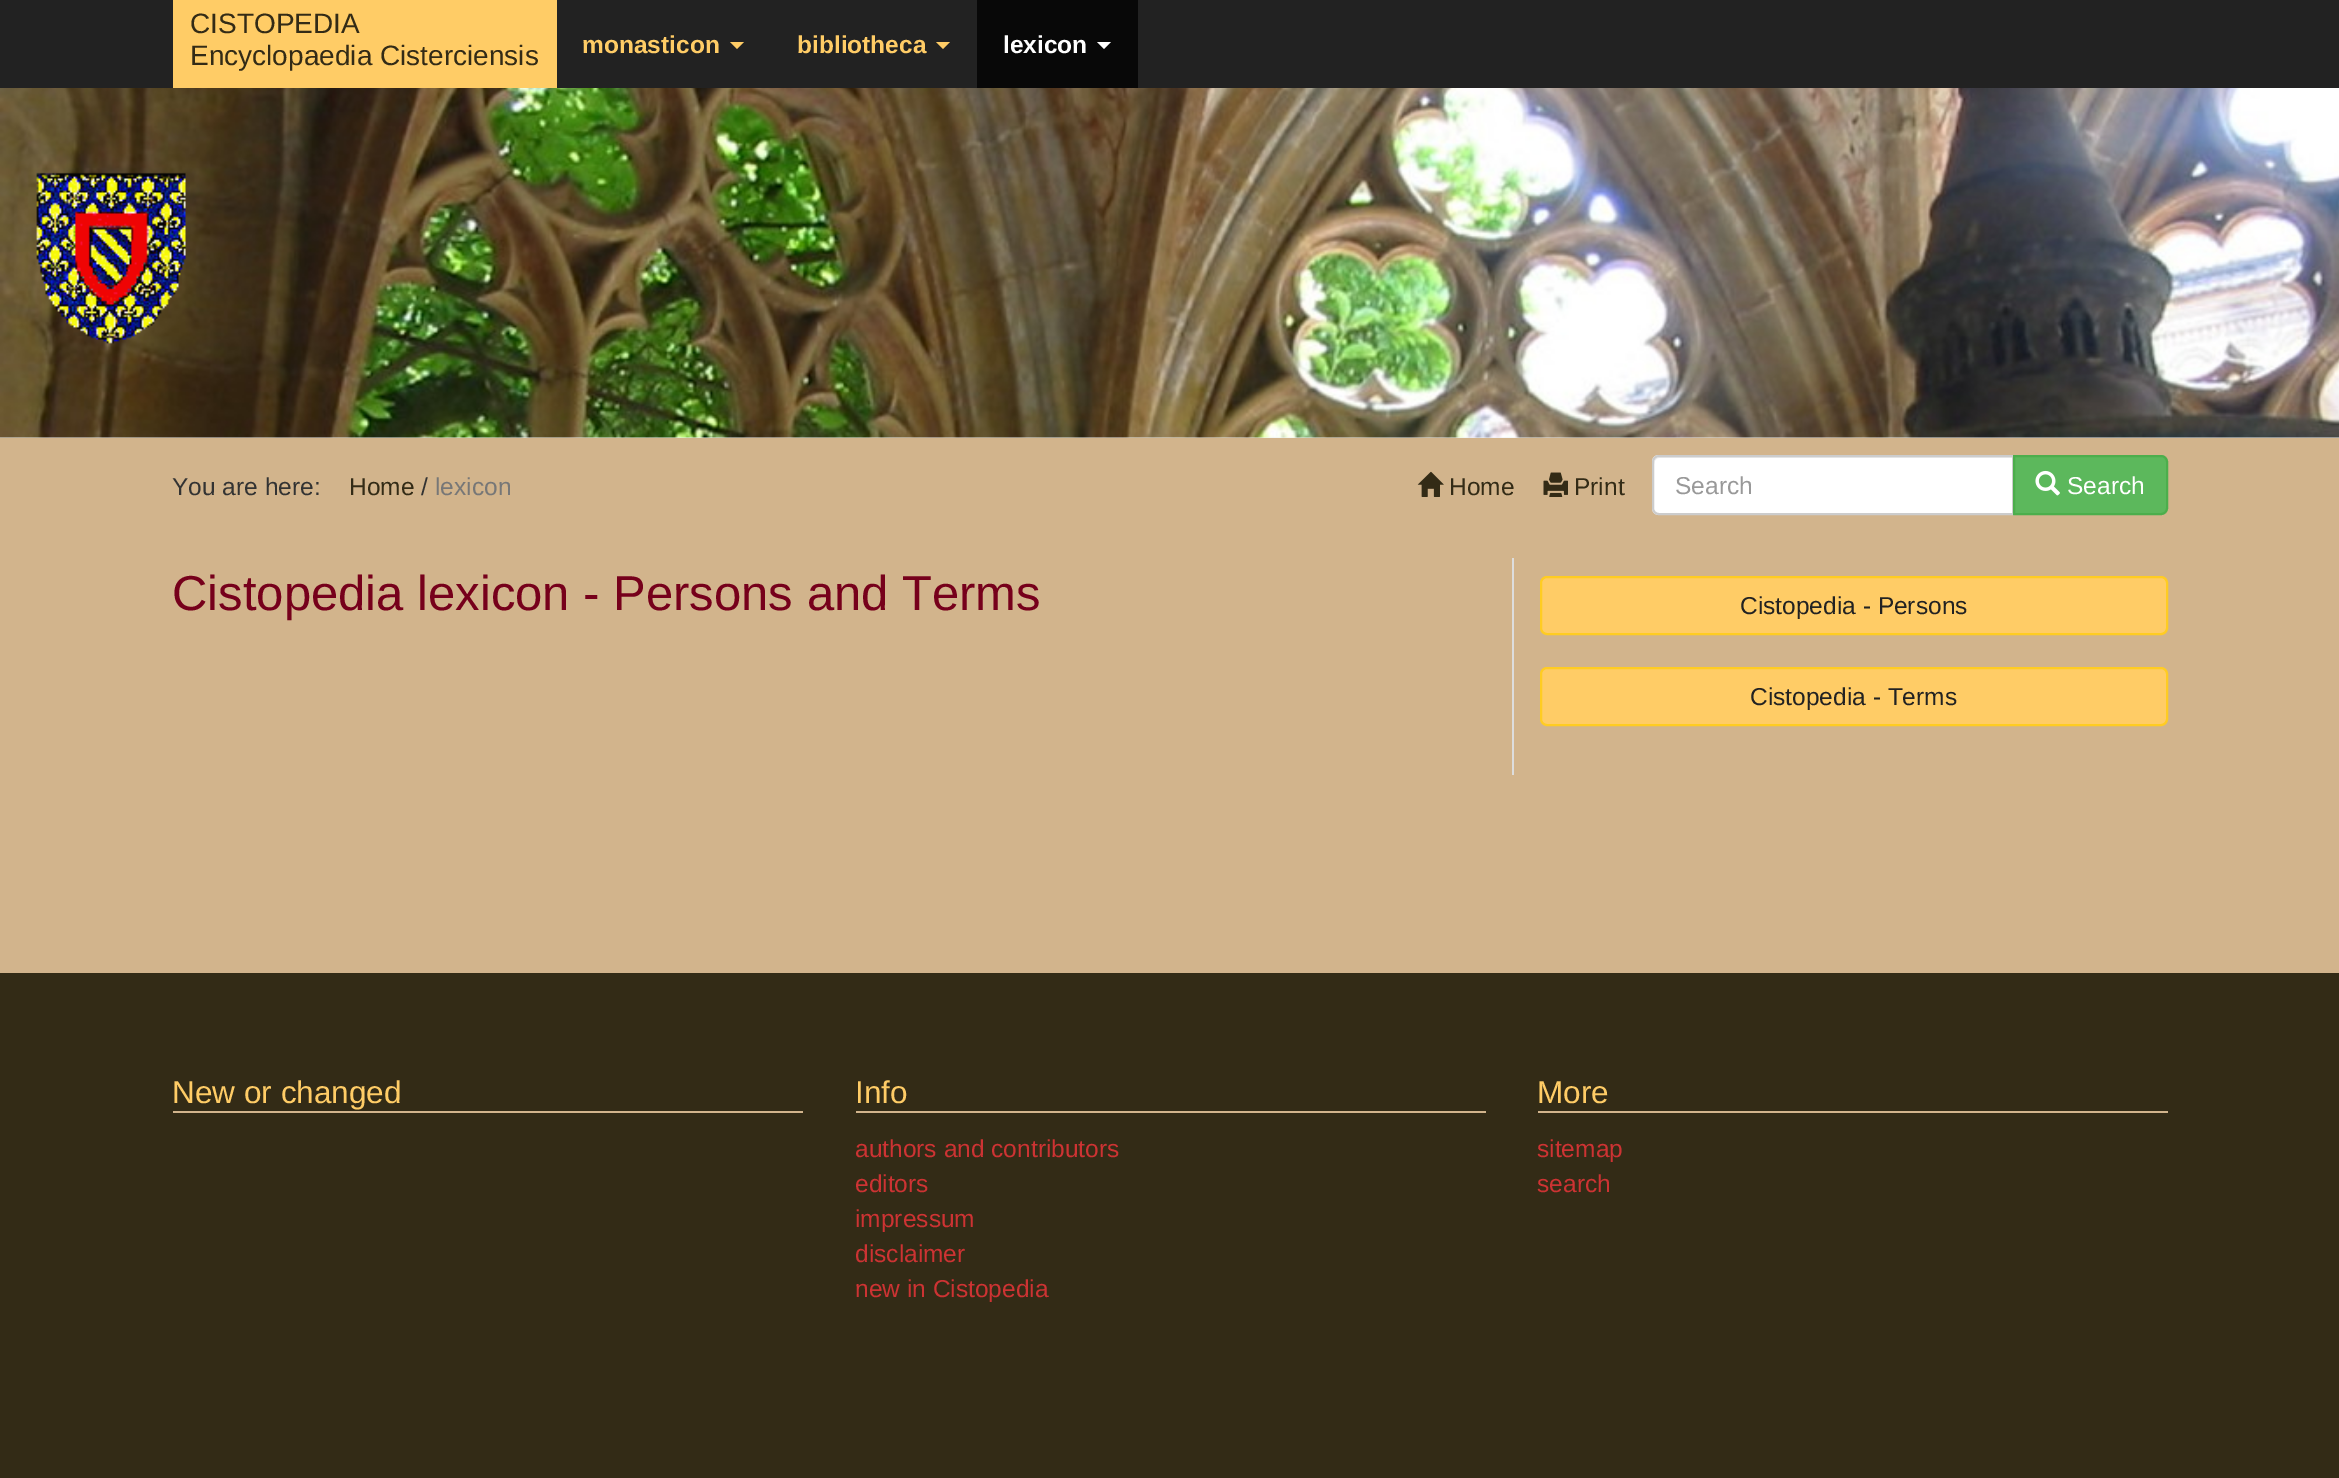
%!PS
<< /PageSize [2339 1478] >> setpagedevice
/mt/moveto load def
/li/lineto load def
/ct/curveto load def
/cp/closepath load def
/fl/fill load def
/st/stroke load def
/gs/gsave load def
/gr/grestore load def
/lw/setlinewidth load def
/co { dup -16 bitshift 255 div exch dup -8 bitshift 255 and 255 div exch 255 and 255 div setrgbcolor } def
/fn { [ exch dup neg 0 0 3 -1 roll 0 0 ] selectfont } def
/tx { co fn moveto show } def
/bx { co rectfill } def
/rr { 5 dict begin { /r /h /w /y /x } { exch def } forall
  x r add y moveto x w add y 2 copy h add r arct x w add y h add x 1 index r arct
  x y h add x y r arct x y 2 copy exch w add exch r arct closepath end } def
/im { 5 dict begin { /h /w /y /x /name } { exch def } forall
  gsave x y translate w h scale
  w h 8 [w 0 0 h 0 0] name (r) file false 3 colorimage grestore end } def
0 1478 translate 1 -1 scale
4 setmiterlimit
0 0 2339 1478 16#D2B48C bx
0 0 2339 88 16#222222 bx
173 0 384 88 16#FFCC66 bx
730 42 mt 744 42 li 737 49 li cp fl
936 42 mt 950 42 li 943 49 li cp fl
977 0 161 88 16#080808 bx
16#FFFFFF co
1097 42 mt 1111 42 li 1104 49 li cp fl
0 437 2339 1 16#EEEEEE bx
(media/1.raw) 0 88 2339 350 im
(media/2.raw) 36 172 150 172 im
(media/3.raw) 1417 471 27 26 im
(media/4.raw) 1543 472 25 25 im
16#FFFFFF co
1659 455 mt 2014 455 li 2014 515 li 1659 515 li 1655 515 1652 512 1652 508 ct 1652 462 li 1652 458 1655 455 1659 455 ct cp fl
16#ECECEC co
1659 458 mt 2012 458 li 2012 513 li 2013 513 li 2013 457 li 1659 457 li 1655 457 1654 461 1654 464 ct 1654 461 1656 458 1659 458 ct cp fl
16#CCCCCC co
2 lw
1659 456 mt 2013 456 li 2013 514 li 1659 514 li 1655.5 514 1653 511.5 1653 508 ct 1653 462 li 1653 458.5 1655.5 456 1659 456 ct cp st
16#5CB85C co
2014 456 mt 2161 456 li 2164.5 456 2167 458.5 2167 462 ct 2167 508 li 2167 511.5 2164.5 514 2161 514 ct 2014 514 li cp gs fl gr
16#4CAE4C co
st
(media/5.raw) 2035 470 25 26 im
1512 558 2 217 16#DDDDDD bx
16#FFCC66 co
1541 577 626 57 6 rr gs fl gr
16#FFCC22 co
st
16#FFCC66 co
1541 668 626 57 6 rr gs fl gr
16#FFCC22 co
st
0 973 2339 505 16#332B16 bx
173 1111 630 2 16#D2B48C bx
856 1111 630 2 16#D2B48C bx
1538 1111 630 2 16#D2B48C bx
(CISTOPEDIA) 190 33 /LiberationSans-Regular 28 16#332B16 tx
(Encyclopaedia Cisterciensis) 190 65 /LiberationSans-Regular 28 16#332B16 tx
(monasticon) 582 53 /LiberationSans-Bold 24.5 16#FFCC66 tx
(bibliotheca) 797 53 /LiberationSans-Bold 24.5 16#FFCC66 tx
(lexicon) 1003 53 /LiberationSans-Bold 24.5 16#FFFFFF tx
(You are here:) 172 495 /LiberationSans-Regular 24.5 16#333333 tx
(Home) 349 495 /LiberationSans-Regular 24.5 16#332B16 tx
(/) 421 495 /LiberationSans-Regular 24.5 16#333333 tx
(lexicon) 435 495 /LiberationSans-Regular 24.5 16#777777 tx
(Home) 1449 495 /LiberationSans-Regular 24.5 16#332B16 tx
(Print) 1574 495 /LiberationSans-Regular 24.5 16#332B16 tx
(Search) 1675 494 /LiberationSans-Regular 24.5 16#999999 tx
(Search) 2067 494 /LiberationSans-Regular 24.5 16#FFFFFF tx
(Cistopedia lexicon - Persons and Terms) 172 610 /LiberationSans-Regular 49 16#76001B tx
(Cistopedia - Persons) 1740 614 /LiberationSans-Regular 24.5 16#222222 tx
(Cistopedia - Terms) 1750 705 /LiberationSans-Regular 24.5 16#222222 tx
(New or changed) 172 1103 /LiberationSans-Regular 31.5 16#FFCC66 tx
(Info) 855 1103 /LiberationSans-Regular 31.5 16#FFCC66 tx
(authors and contributors) 855 1157 /LiberationSans-Regular 24.5 16#CD3333 tx
(editors) 855 1192 /LiberationSans-Regular 24.5 16#CD3333 tx
(impressum) 855 1227 /LiberationSans-Regular 24.5 16#CD3333 tx
(disclaimer) 855 1262 /LiberationSans-Regular 24.5 16#CD3333 tx
(new in Cistopedia) 855 1297 /LiberationSans-Regular 24.5 16#CD3333 tx
(More) 1537 1103 /LiberationSans-Regular 31.5 16#FFCC66 tx
(sitemap) 1537 1157 /LiberationSans-Regular 24.5 16#CD3333 tx
(search) 1537 1192 /LiberationSans-Regular 24.5 16#CD3333 tx
showpage
